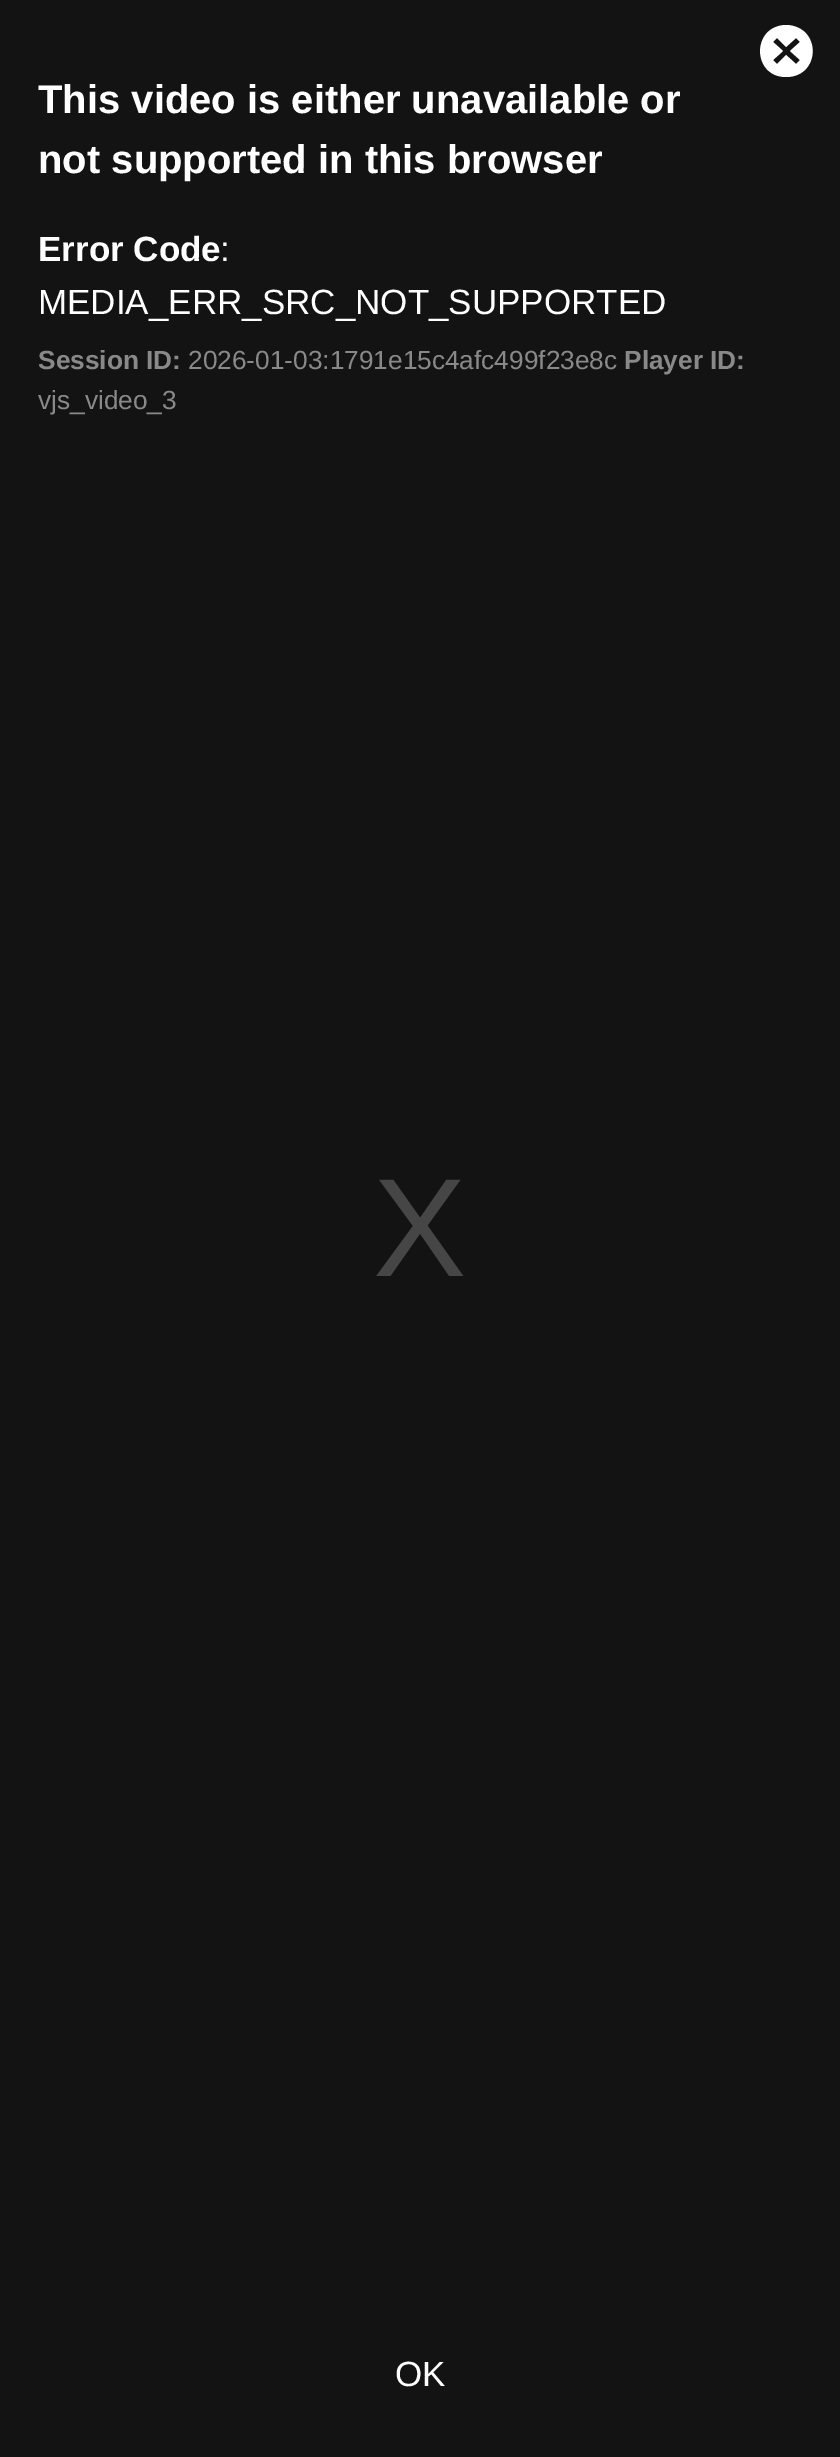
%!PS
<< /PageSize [840 2457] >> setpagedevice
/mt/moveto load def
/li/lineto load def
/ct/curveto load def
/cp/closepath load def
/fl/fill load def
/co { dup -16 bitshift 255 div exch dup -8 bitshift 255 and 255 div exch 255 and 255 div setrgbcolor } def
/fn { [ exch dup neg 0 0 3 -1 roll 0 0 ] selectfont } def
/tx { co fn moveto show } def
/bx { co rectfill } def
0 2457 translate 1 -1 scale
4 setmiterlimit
0 0 840 2457 16#131313 bx
16#FFFFFF co
786 25 mt 751 26 752 77 786 77 ct 821 77 822 26 786 25 ct cp 800 60 mt 796 64 li 786 55 li 777 64 li 773 60 li 783 51 li 773 42 li 777 38 li 786 47 li 796 38 li 800 42 li 790 51 li cp fl
(This video is either unavailable or) 38 113 /LiberationSans-Bold 40 16#FFFFFF tx
(not supported in this browser) 38 173 /LiberationSans-Bold 40 16#FFFFFF tx
(Error Code) 38 261 /LiberationSans-Bold 35 16#FFFFFF tx
(:) 220 261 /LiberationSans-Regular 35 16#FFFFFF tx
(MEDIA_ERR_SRC_NOT_SUPPORTED) 38 314 /LiberationSans-Regular 35 16#FFFFFF tx
(Session ID:) 38 369 /LiberationSans-Bold 26.25 16#898989 tx
(2026-01-03:1791e15c4afc499f23e8c) 188 369 /LiberationSans-Regular 26.25 16#898989 tx
(Player ID:) 624 369 /LiberationSans-Bold 26.25 16#898989 tx
(vjs_video_3) 38 409 /LiberationSans-Regular 26.25 16#898989 tx
(OK) 395 2386 /LiberationSans-Regular 35 16#FFFFFF tx
(X) 373 1276 /LiberationSans-Regular 140 16#464646 tx
showpage
